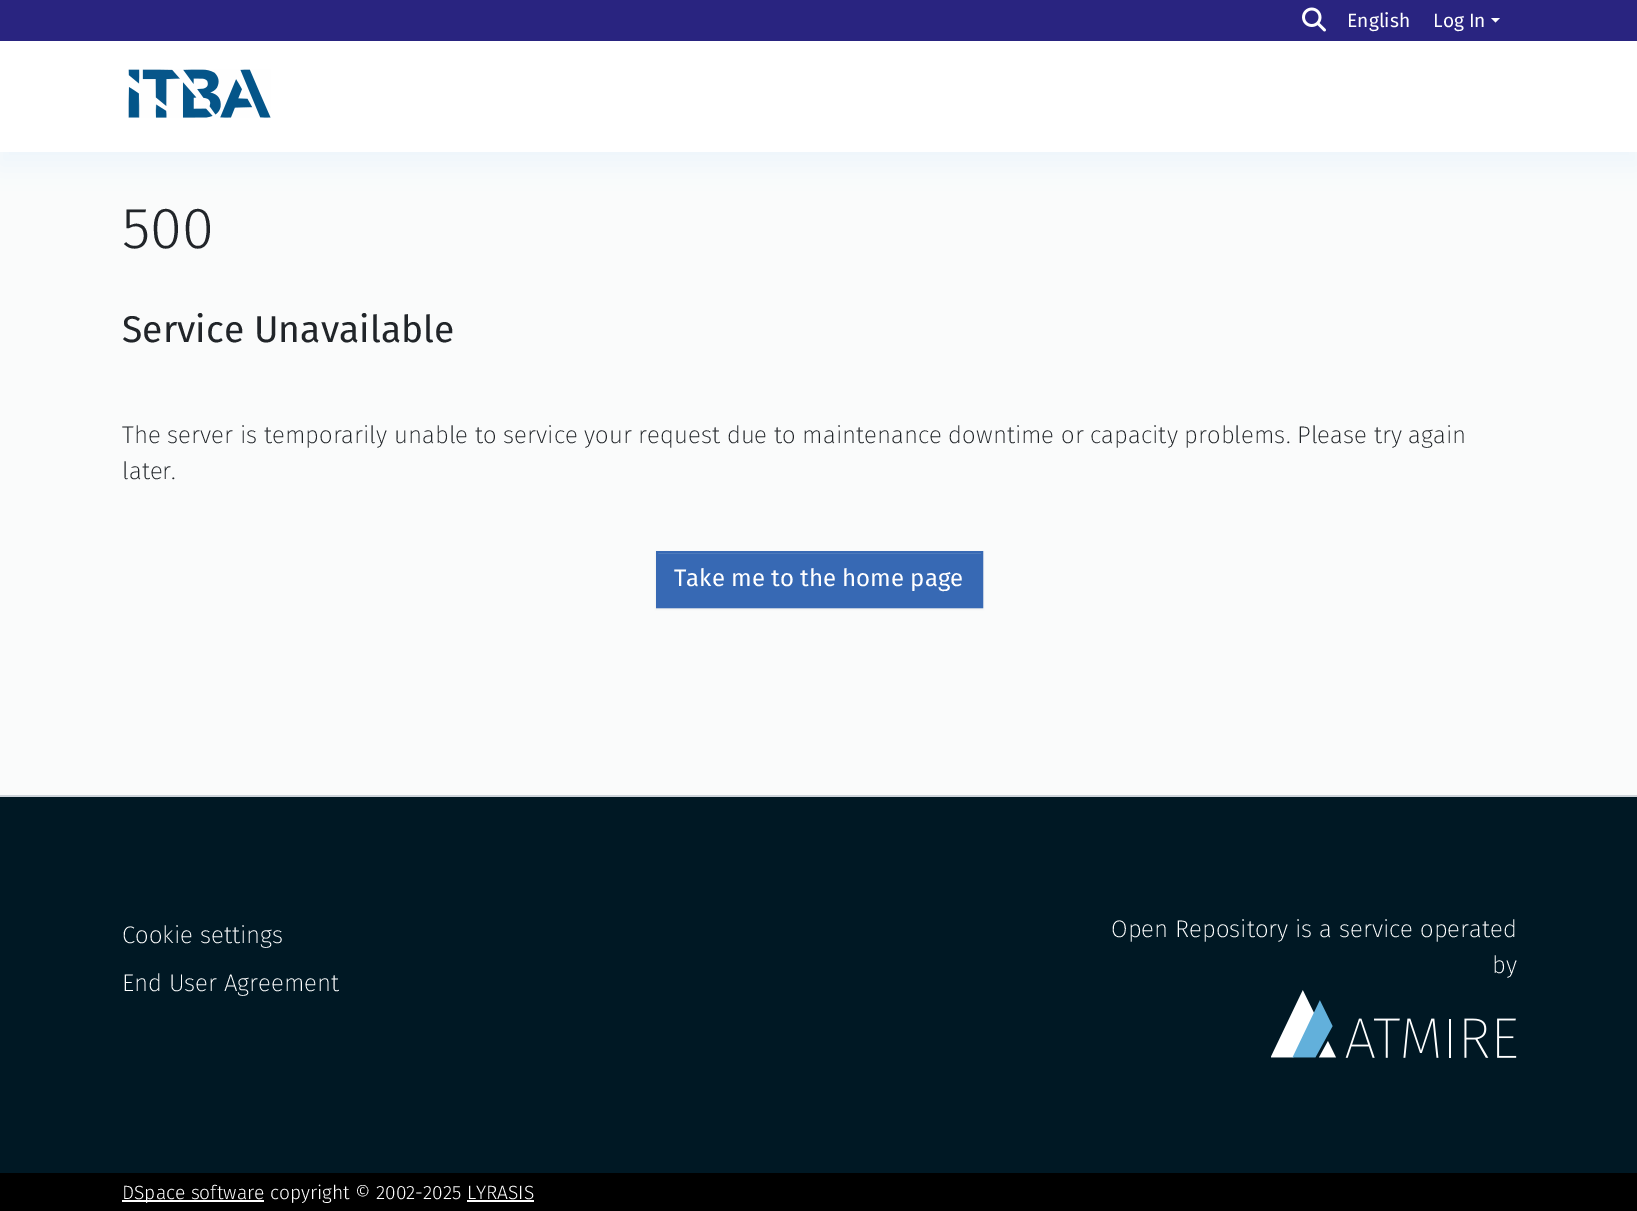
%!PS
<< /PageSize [1637 1211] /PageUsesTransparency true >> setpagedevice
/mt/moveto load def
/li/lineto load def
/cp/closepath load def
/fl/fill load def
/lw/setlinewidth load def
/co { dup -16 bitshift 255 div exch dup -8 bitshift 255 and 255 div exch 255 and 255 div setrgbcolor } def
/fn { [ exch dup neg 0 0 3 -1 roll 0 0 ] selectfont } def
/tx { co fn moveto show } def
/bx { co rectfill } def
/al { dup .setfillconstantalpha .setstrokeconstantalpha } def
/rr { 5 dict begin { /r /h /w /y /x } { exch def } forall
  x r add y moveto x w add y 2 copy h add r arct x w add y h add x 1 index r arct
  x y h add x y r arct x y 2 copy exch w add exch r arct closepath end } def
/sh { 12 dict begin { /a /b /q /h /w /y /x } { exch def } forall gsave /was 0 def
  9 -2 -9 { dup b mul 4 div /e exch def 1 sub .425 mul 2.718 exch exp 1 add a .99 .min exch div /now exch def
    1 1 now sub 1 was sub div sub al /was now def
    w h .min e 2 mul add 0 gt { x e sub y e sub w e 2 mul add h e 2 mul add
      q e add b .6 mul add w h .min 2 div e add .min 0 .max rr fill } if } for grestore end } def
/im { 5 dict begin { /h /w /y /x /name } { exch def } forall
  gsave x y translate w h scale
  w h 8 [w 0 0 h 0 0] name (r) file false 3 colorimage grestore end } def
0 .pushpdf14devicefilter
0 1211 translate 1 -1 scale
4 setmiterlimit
0 0 1637 1211 16#FAFBFB bx
16#63B3DE co
0 12 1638 152 0 12 .08 sh
0 41 1637 111 16#FFFFFF bx
0 0 1637 41 16#292480 bx
(media/1.raw) 1302 7 24 25 im
16#FFFFFF co
1491 18 mt 1500 18 li 1495.5 22.5 li cp fl
(media/2.raw) 128 69 143 49 im
16#000000 co
656 552 327 57 0 1 .07 sh
658 554 323 52 16#3769B4 bx
657 553 324 1 16#5580BF bx
16#3769B4 co
2 lw
657 552 325 55 rectstroke
0 797 1637 376 16#001824 bx
0 795 1637 2 16#CED4DA bx
(media/3.raw) 1271 990 246 68 im
0 1173 1637 38 16#000000 bx
122 1200 142 2 16#FFFFFF bx
467 1200 67 2 16#FFFFFF bx
(English) 1347 27 /FiraSans-Regular 19.2 16#FFFFFF tx
(Log In) 1433 27 /FiraSans-Regular 19.2 16#FFFFFF tx
(500) 122 248 /FiraSans-Light 58 16#212529 tx
(Service Unavailable) 122 342 /FiraSans-Regular 37.25 16#212529 tx
(The server is temporarily unable to service your request due to maintenance downtime or capacity problems. Please try again) 122 443 /FiraSans-ExtraLight 24 16#212529 tx
(later.) 122 479 /FiraSans-ExtraLight 24 16#212529 tx
(Take me to the home page) 674 586 /FiraSans-Regular 24 16#FFFFFF tx
(Cookie settings) 122 943 /FiraSans-ExtraLight 24 16#FFFFFF tx
(End User Agreement) 122 991 /FiraSans-ExtraLight 24 16#FFFFFF tx
(Open Repository is a service operated) 1111 937 /FiraSans-ExtraLight 24 16#FFFFFF tx
(by) 1492 973 /FiraSans-ExtraLight 24 16#FFFFFF tx
(DSpace software copyright © 2002-2025 LYRASIS) 122 1199 /FiraSans-Light 19.2 16#FFFFFF tx
.poppdf14devicefilter showpage
